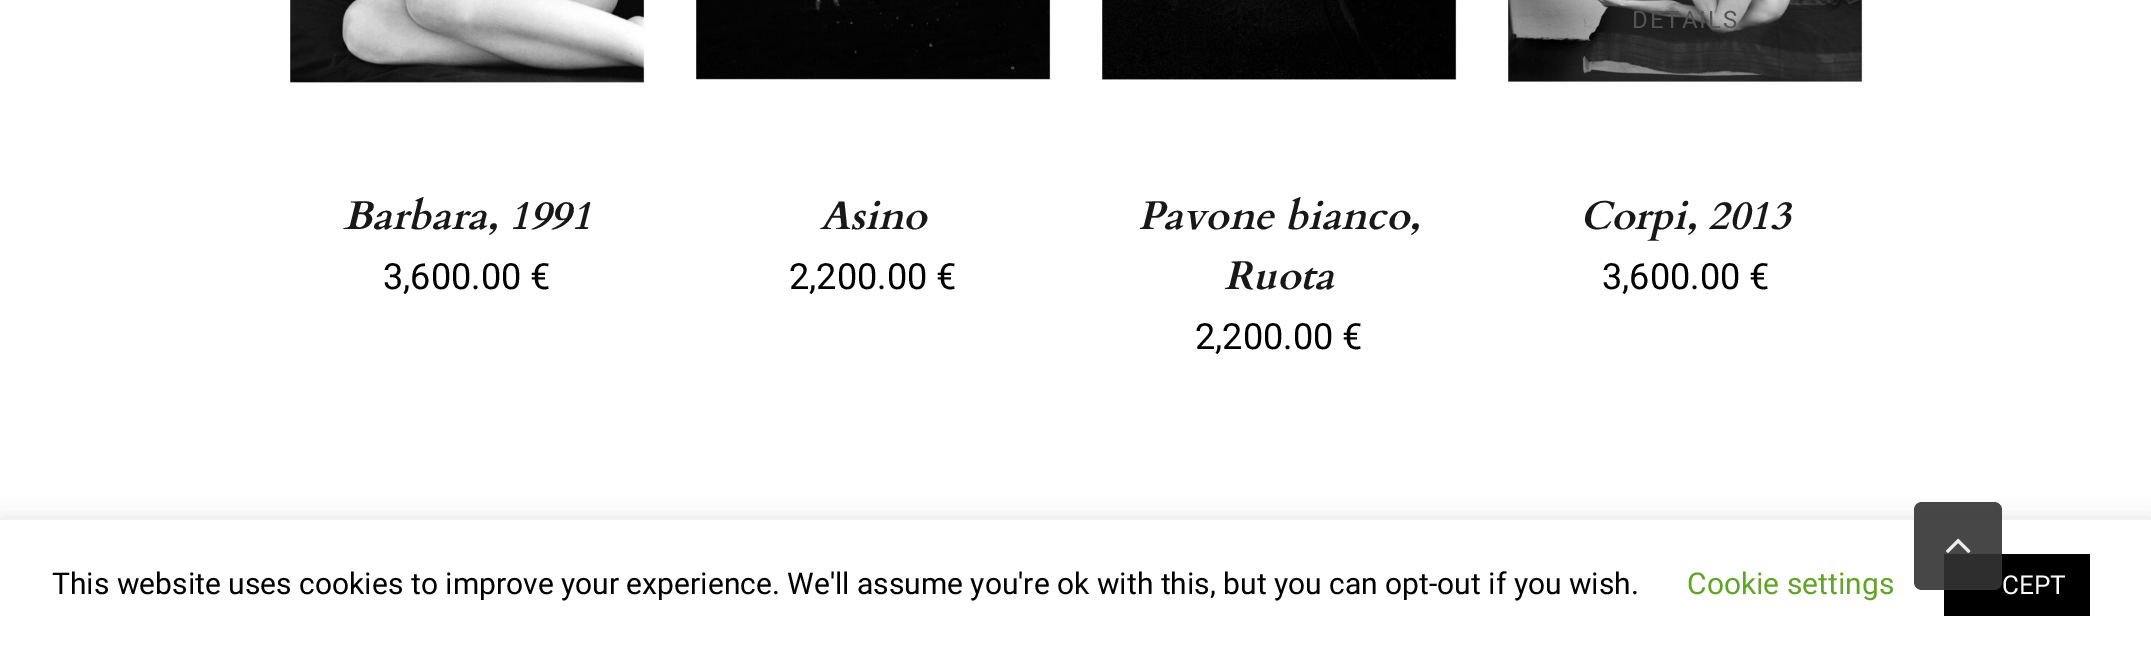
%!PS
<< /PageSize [2151 649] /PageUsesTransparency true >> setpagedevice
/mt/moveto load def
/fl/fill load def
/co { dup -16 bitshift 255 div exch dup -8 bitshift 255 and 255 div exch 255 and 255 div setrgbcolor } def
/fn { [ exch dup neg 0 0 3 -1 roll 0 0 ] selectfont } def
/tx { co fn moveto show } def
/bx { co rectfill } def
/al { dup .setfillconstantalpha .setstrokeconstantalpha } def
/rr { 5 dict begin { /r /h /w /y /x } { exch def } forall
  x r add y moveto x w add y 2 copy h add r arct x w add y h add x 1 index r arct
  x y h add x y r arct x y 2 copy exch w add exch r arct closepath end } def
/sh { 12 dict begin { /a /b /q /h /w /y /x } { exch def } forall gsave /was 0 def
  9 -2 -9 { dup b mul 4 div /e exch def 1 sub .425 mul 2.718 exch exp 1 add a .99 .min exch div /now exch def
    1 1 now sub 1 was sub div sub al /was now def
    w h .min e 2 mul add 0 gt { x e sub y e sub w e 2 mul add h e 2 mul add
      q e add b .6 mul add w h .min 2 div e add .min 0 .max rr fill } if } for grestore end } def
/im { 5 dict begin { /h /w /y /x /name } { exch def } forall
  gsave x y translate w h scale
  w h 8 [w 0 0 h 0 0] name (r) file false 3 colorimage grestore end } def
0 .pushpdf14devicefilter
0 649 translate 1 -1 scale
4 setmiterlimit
0 0 2151 649 16#FFFFFF bx
(media/1.raw) 290 0 355 86 im
(media/2.raw) 696 0 357 80 im
(media/3.raw) 1102 0 355 81 im
(media/4.raw) 1508 0 356 85 im
16#ACABAB co
0 518 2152 130 0 10 .3 sh
0 520 2151 129 16#FFFFFF bx
1944 554 146 62 16#000000 bx
0.9 al
16#333333 co
1914 502 88 88 8 rr fl
1 al
(media/5.raw) 1946 538 25 15 im
(Barbara, 1991) 343 229 /Cardo-BoldItalic 40 16#181818 tx
(3,600.00 €) 383 289 /Heebo-Regular 36 16#000000 tx
(Asino) 820 229 /Cardo-BoldItalic 40 16#181818 tx
(2,200.00 €) 789 289 /Heebo-Regular 36 16#000000 tx
(Pavone bianco,) 1138 229 /Cardo-BoldItalic 40 16#181818 tx
(Ruota) 1224 289 /Cardo-BoldItalic 40 16#181818 tx
(2,200.00 €) 1195 349 /Heebo-Regular 36 16#000000 tx
/Heebo-Regular 24 fn
16#535353 co
1632 28 mt 2 0 (DETAILS) ashow
(Corpi, 2013) 1580 229 /Cardo-BoldItalic 40 16#181818 tx
(3,600.00 €) 1602 289 /Heebo-Regular 36 16#000000 tx
(This website uses cookies to improve your experience. We'll assume you're ok with this, but you can opt-out if you wish.) 52 594 /Heebo-Regular 30 16#000000 tx
(Cookie settings) 1687 594 /Heebo-Regular 30 16#62A329 tx
(CEPT) 2002 594 /Heebo-Regular 26 16#FFFFFF tx
.poppdf14devicefilter showpage
